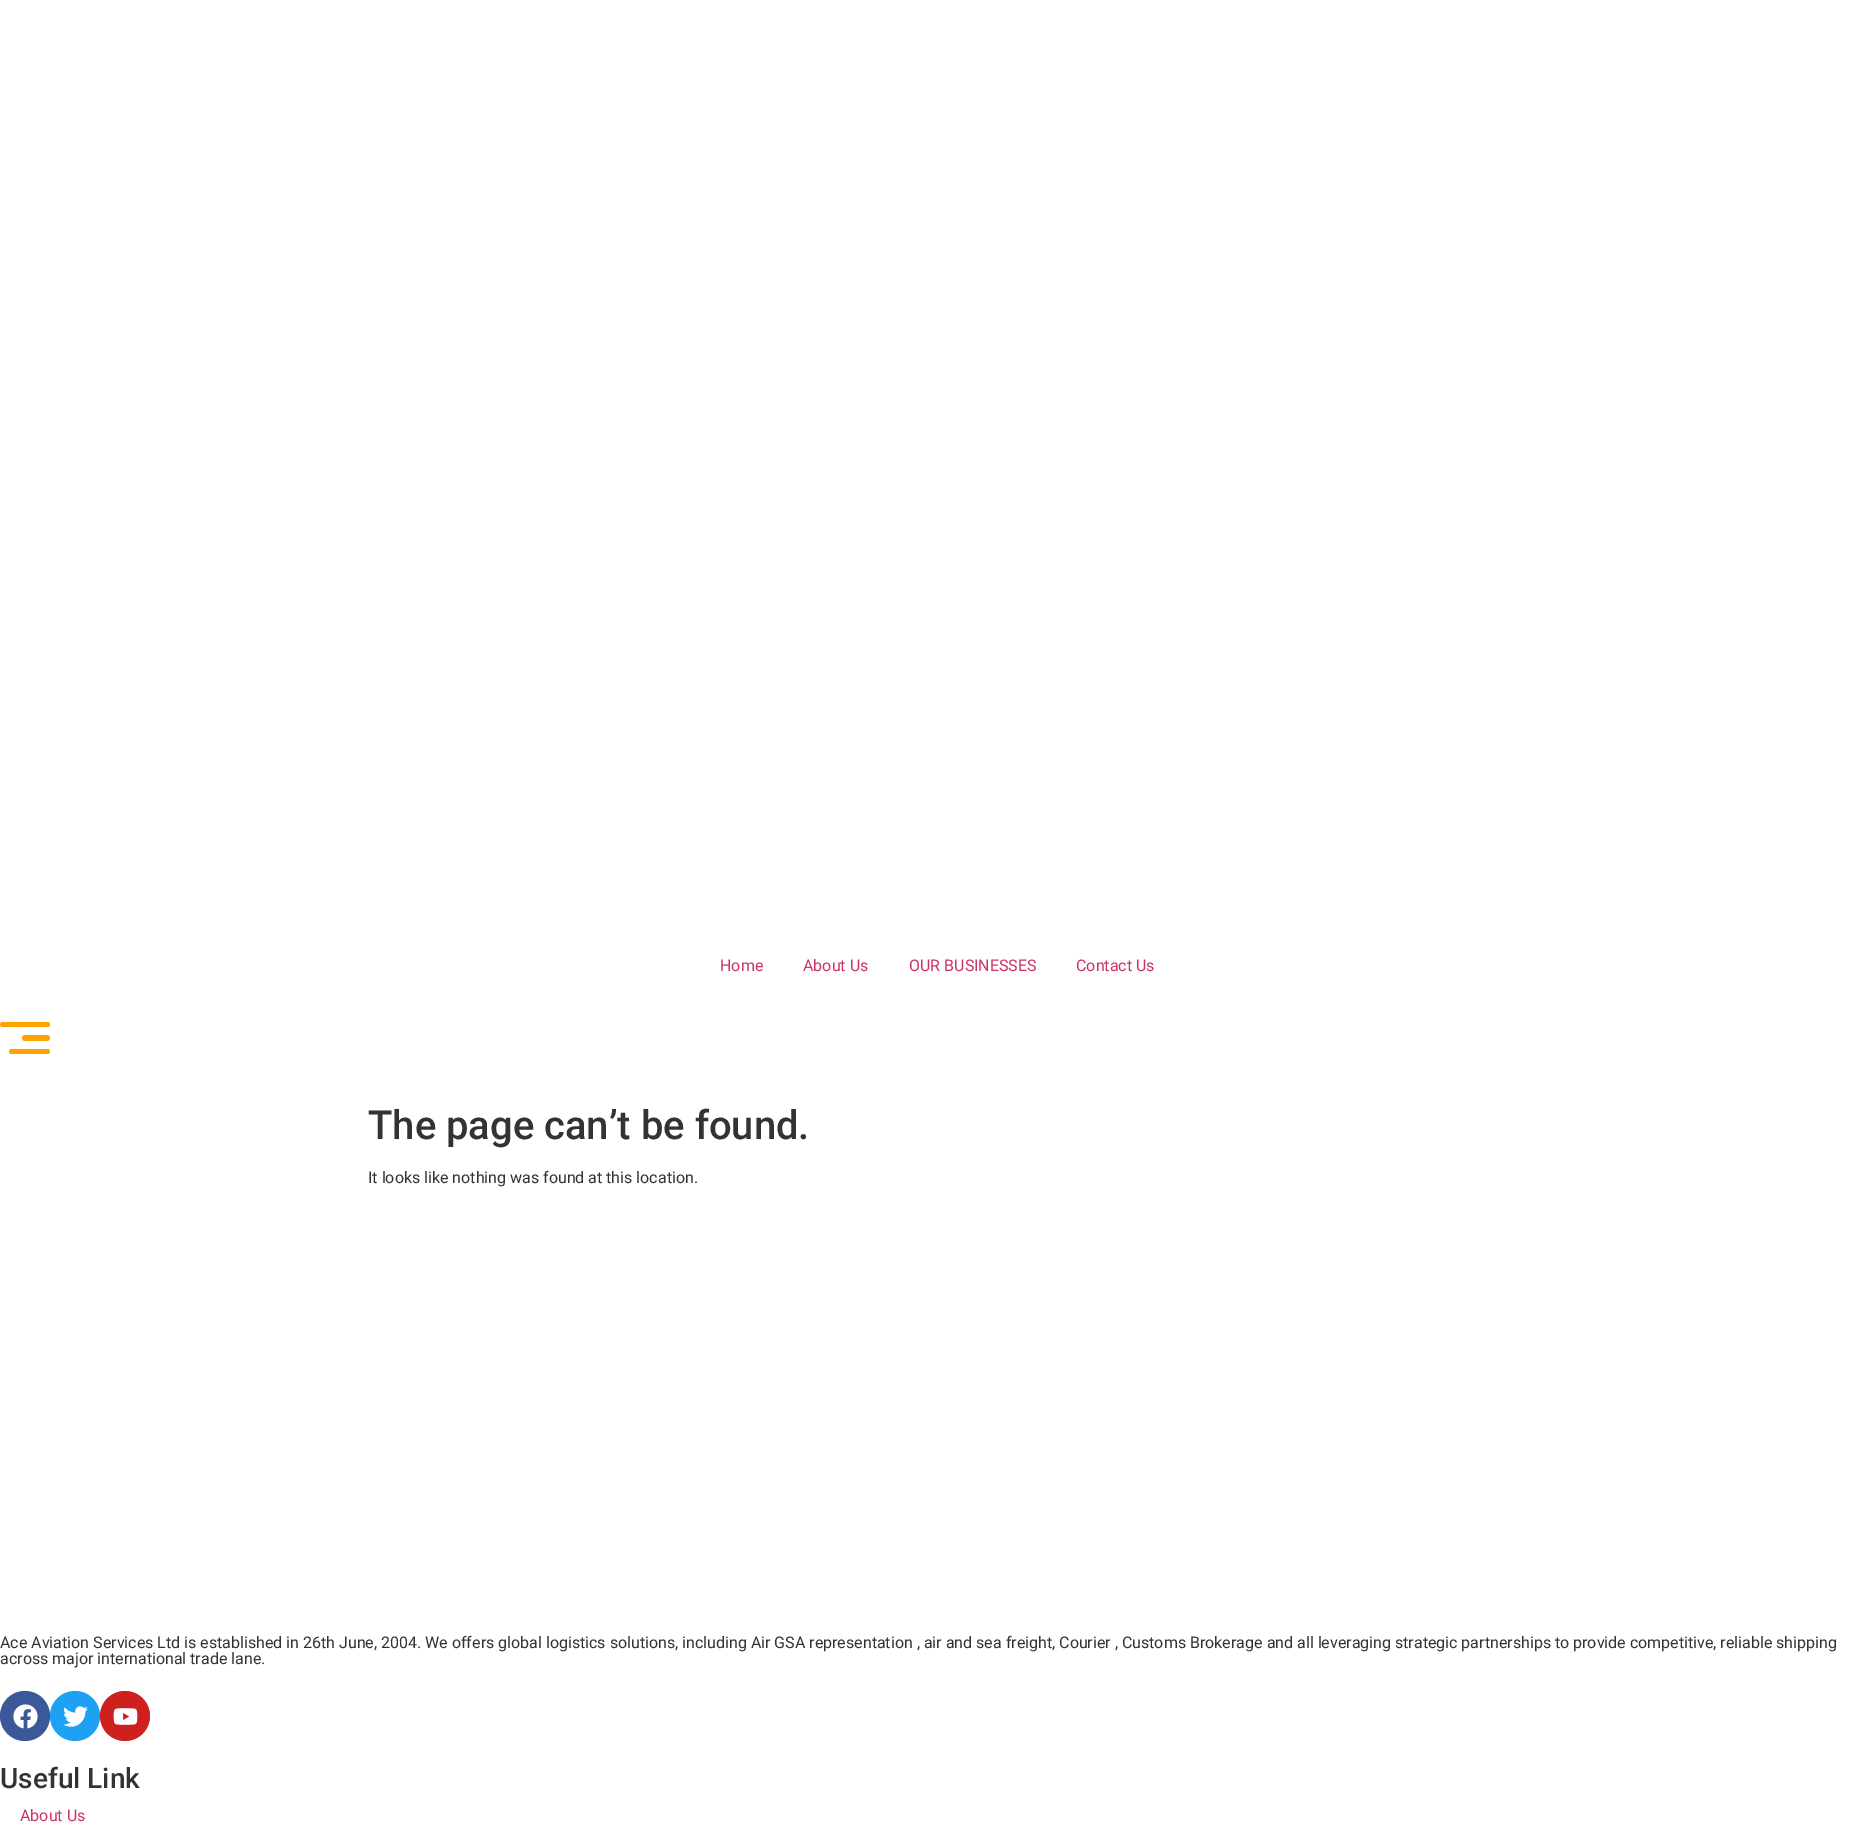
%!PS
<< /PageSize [1875 1841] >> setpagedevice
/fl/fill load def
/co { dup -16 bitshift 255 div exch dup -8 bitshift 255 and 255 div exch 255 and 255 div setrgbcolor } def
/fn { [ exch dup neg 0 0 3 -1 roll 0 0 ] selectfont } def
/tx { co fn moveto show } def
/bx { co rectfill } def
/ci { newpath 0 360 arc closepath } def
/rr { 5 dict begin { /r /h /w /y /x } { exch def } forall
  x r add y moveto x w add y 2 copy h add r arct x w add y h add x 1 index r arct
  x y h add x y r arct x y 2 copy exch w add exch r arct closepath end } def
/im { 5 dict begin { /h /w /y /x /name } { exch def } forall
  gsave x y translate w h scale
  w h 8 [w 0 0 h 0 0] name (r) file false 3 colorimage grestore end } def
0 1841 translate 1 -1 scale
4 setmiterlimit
0 0 1875 1841 16#FFFFFF bx
16#FFA300 co
0 1022 50 5 2.5 rr fl
22 1035 28 6 3 rr fl
9 1049 41 5 2.5 rr fl
16#3B5998 co
25 1716 25 ci fl
(media/1.raw) 13 1704 25 25 im
16#1DA1F2 co
75 1716 25 ci fl
(media/2.raw) 63 1706 25 21 im
16#CD201F co
125 1716 25 ci fl
(media/3.raw) 113 1708 25 17 im
(Home) 720 971 /Roboto-Regular 16 16#CC3366 tx
(About Us) 803 971 /Roboto-Regular 16 16#CC3366 tx
(OUR BUSINESSES) 909 971 /Roboto-Regular 16 16#CC3366 tx
(Contact Us) 1076 971 /Roboto-Regular 16 16#CC3366 tx
(The page can’t be found.) 368 1139 /Roboto-Medium 40 16#333333 tx
(It looks like nothing was found at this location.) 368 1183 /Roboto-Regular 16 16#333333 tx
(Ace Aviation Services Ltd is established in 26th June, 2004. We offers global logistics solutions, including Air GSA representation , air and sea freight, Courier , Customs Brokerage and all leveraging strategic partnerships to provide competitive, reliable shipping) 0 1648 /Roboto-Regular 16 16#333333 tx
(across major international trade lane.) 0 1664 /Roboto-Regular 16 16#333333 tx
(Useful Link) 0 1788 /Roboto-Medium 28 16#333333 tx
(About Us) 20 1821 /Roboto-Regular 16 16#CC3366 tx
showpage
